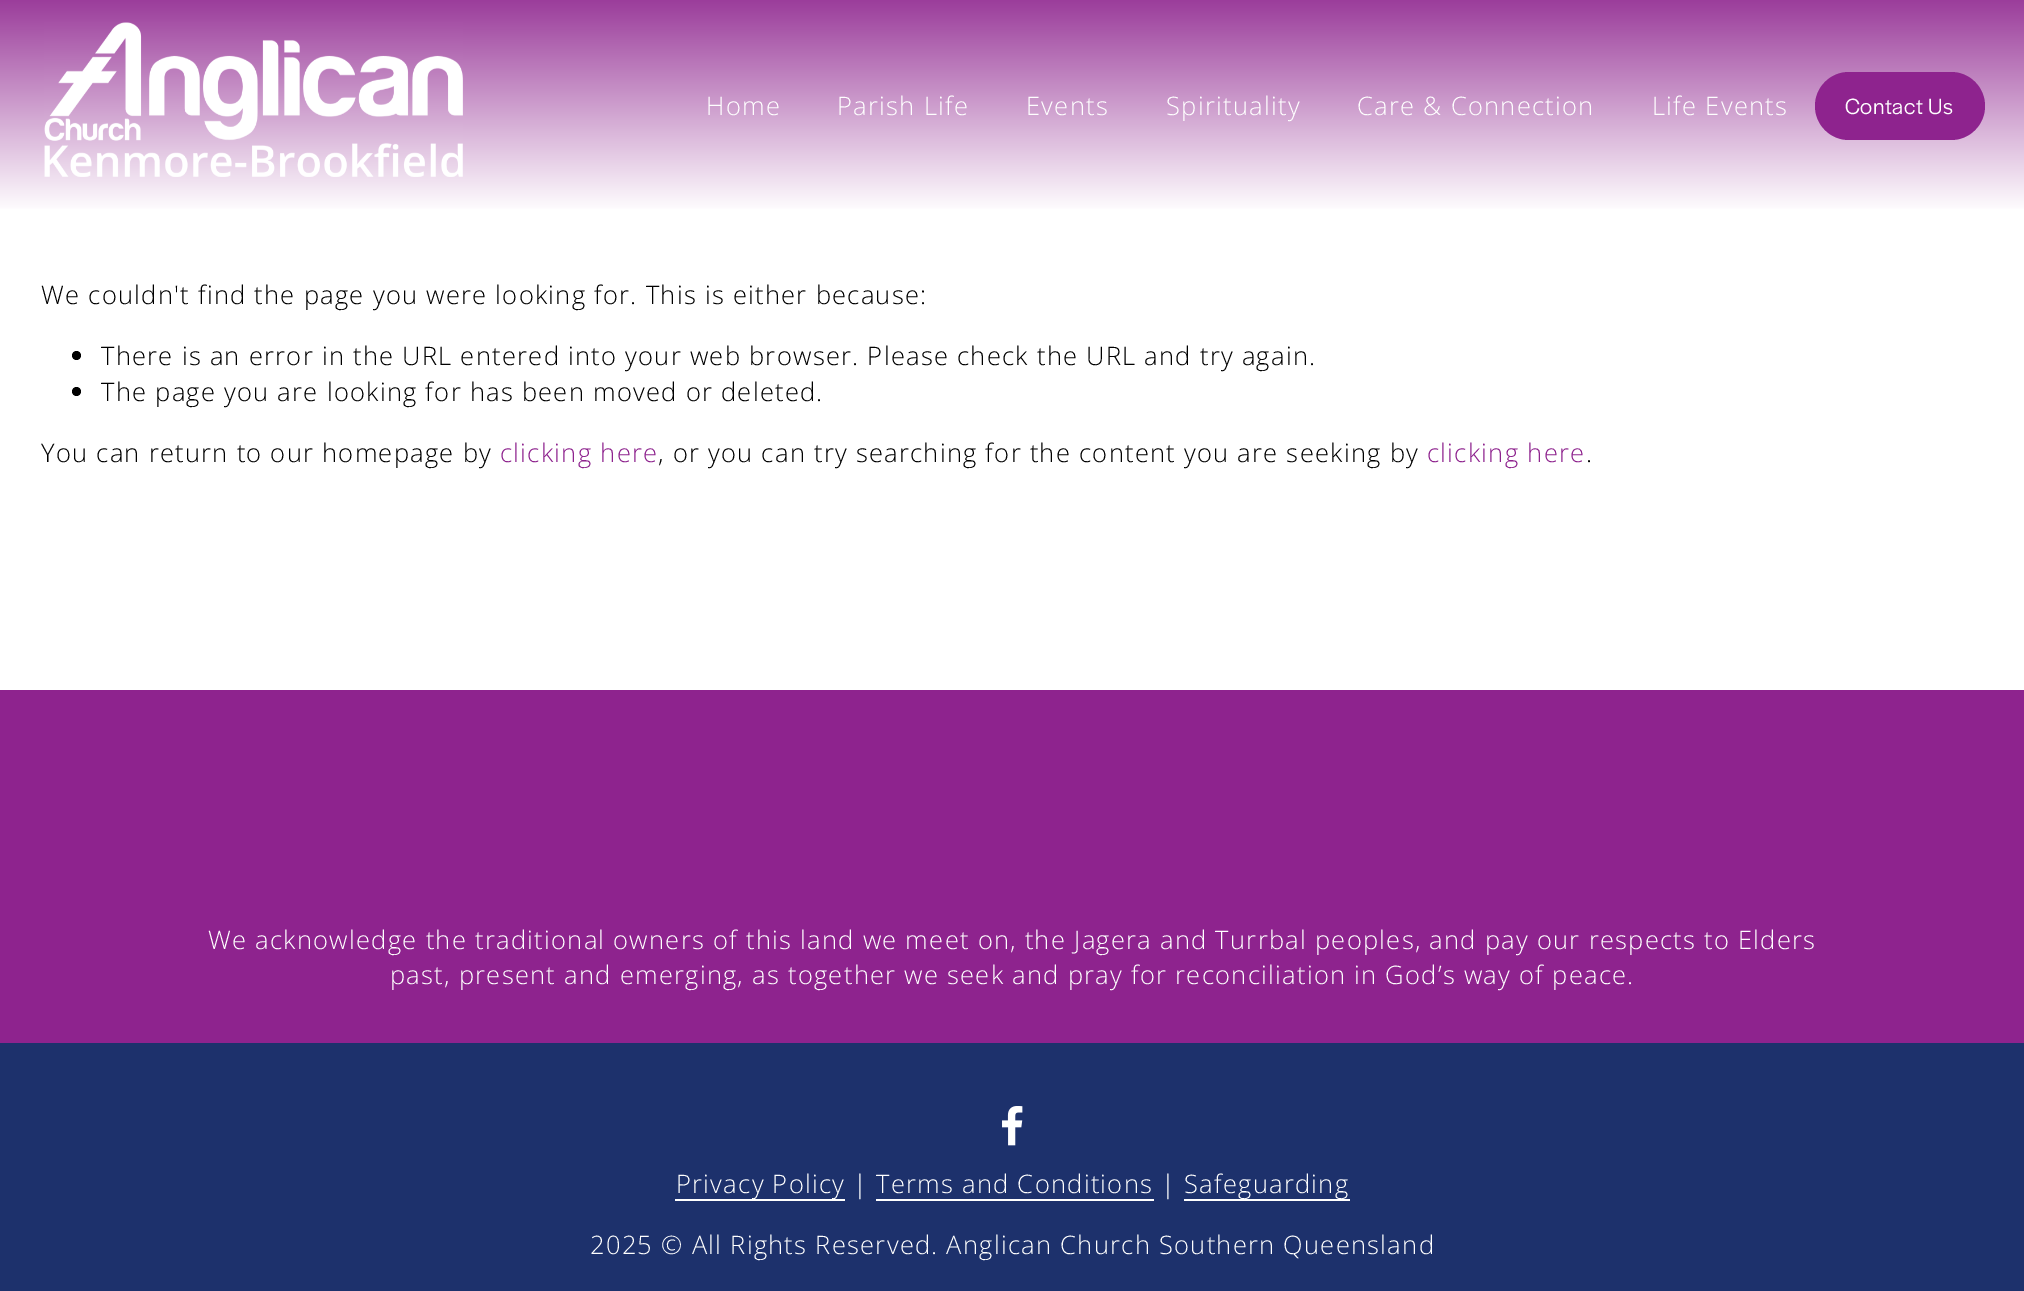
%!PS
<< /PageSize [2024 1291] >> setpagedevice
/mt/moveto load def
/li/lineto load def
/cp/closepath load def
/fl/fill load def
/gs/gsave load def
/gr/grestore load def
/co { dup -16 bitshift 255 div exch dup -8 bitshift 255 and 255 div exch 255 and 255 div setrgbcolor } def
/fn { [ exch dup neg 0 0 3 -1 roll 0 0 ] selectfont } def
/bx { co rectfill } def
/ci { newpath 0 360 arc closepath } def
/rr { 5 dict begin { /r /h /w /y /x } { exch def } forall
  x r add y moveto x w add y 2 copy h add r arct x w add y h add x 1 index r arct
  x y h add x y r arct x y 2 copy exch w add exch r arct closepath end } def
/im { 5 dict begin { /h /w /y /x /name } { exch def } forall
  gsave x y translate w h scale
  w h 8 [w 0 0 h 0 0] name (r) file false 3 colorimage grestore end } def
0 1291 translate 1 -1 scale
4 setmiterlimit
0 0 2024 1291 16#FFFFFF bx
gs 0 0 mt 2024 0 li 2024 209 li 0 209 li cp clip newpath
<< /ShadingType 2 /ColorSpace /DeviceRGB /Coords [1013 0 1013 212] /Extend [true true] /Function << /FunctionType 2 /Domain [0 1] /C0 [.608 .239 .608] /C1 [1 1 1] /N 1 >> >> shfill gr
(media/1.raw) 44 22 419 155 im
16#8E238E co
1815 72 170 68 34 rr fl
16#000000 co
76.5 355.5 4.5 ci fl
76.5 391.5 4.5 ci fl
0 690 2024 353 16#8E238E bx
0 1043 2024 248 16#1D316C bx
(media/2.raw) 1002 1106 21 40 im
675 1199 170 2 16#FFFFFF bx
1184 1199 166 2 16#FFFFFF bx
876 1199 278 2 16#FFFFFF bx
/OpenSans-Light 25.5 fn
706 115 mt 1.27 0 (Home) ashow
837 115 mt 1.27 0 (Parish Life) ashow
1026 115 mt 1.27 0 (Events) ashow
1166 115 mt 1.27 0 (Spirituality) ashow
1357 115 mt 1.27 0 (Care & Connection) ashow
1652 115 mt 1.27 0 (Life Events) ashow
/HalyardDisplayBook-Regular 23 fn
1845 114 mt .5 0 (Contact Us) ashow
/OpenSans-Light 25.5 fn
16#000000 co
41 304 mt 1.27 0 (We couldn't find the page you were looking for. This is either because:) ashow
101 365 mt 1.27 0 (There is an error in the URL entered into your web browser. Please check the URL and try again.) ashow
101 401 mt 1.27 0 (The page you are looking for has been moved or deleted.) ashow
41 462 mt 1.27 0 (You can return to our homepage by) ashow
16#8E238E co
500 462 mt 1.27 0 (clicking here) ashow
16#000000 co
658 462 mt 1.27 0 (, or you can try searching for the content you are seeking by) ashow
16#8E238E co
1427 462 mt 1.27 0 (clicking here) ashow
16#000000 co
1586 462 mt 1.27 0 (.) ashow
16#FFFFFF co
208 949 mt 1.27 0 (We acknowledge the traditional owners of this land we meet on, the Jagera and Turrbal peoples, and pay our respects to Elders) ashow
390 984 mt 1.27 0 (past, present and emerging, as together we seek and pray for reconciliation in God’s way of peace.) ashow
676 1193 mt 1.27 0 (Privacy Policy | Terms and Conditions |) ashow
1184 1193 mt 1.27 0 (Safeguarding) ashow
590 1254 mt 1.27 0 (2025 © All Rights Reserved. Anglican Church Southern Queensland) ashow
showpage
